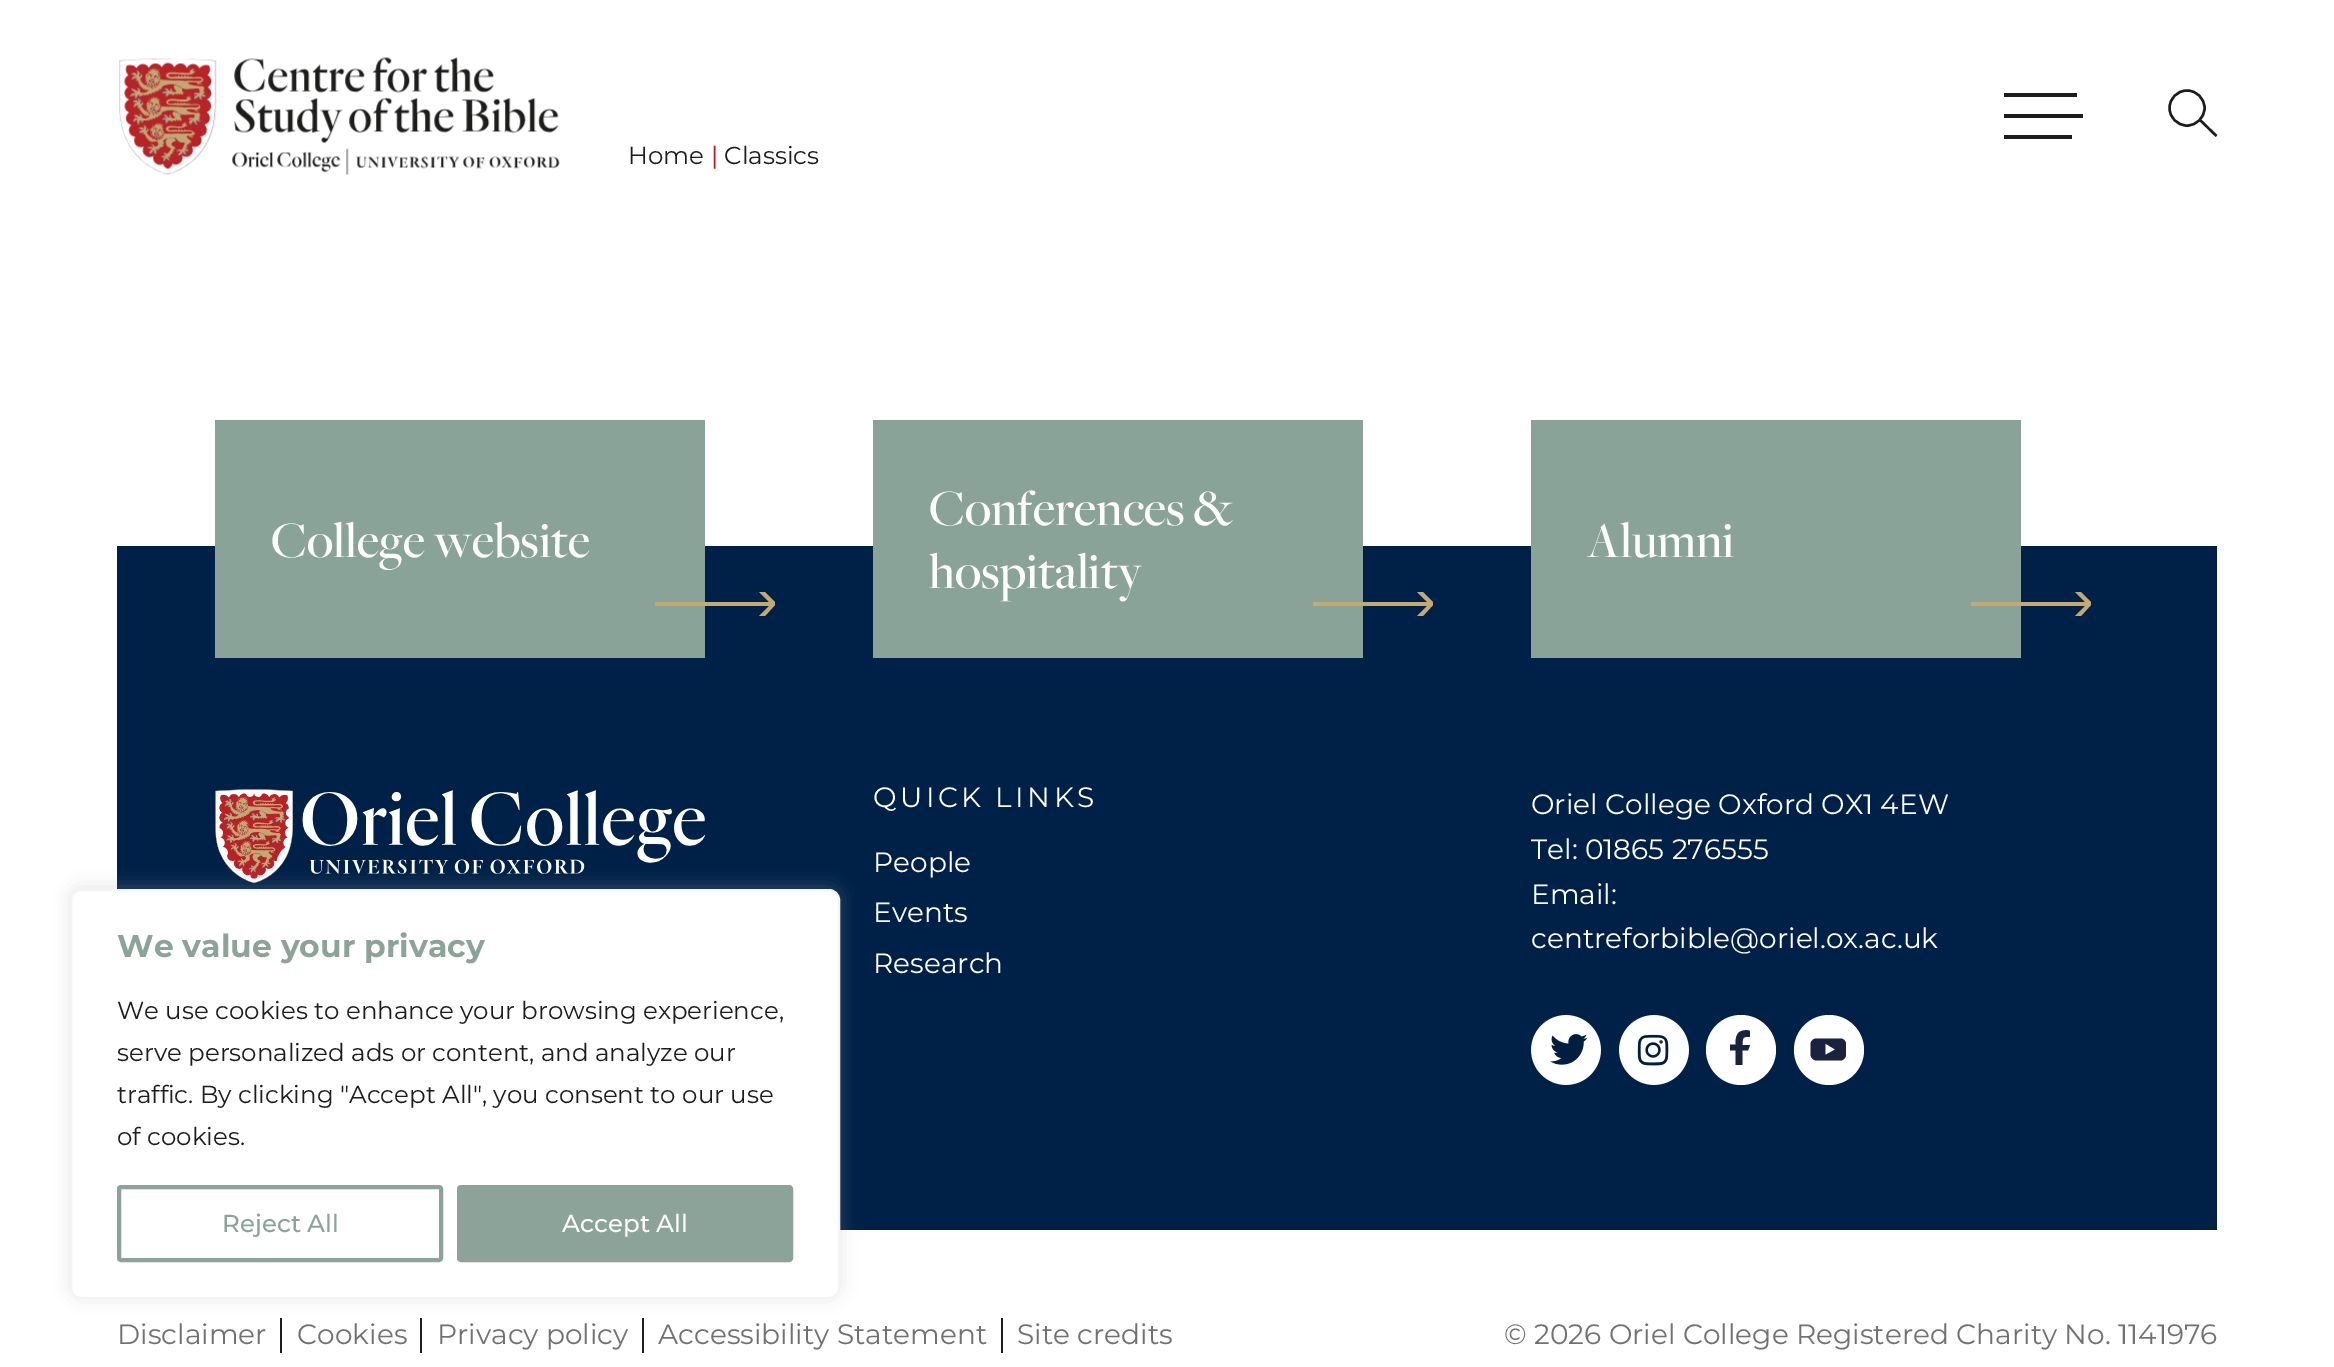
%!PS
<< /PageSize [2334 1367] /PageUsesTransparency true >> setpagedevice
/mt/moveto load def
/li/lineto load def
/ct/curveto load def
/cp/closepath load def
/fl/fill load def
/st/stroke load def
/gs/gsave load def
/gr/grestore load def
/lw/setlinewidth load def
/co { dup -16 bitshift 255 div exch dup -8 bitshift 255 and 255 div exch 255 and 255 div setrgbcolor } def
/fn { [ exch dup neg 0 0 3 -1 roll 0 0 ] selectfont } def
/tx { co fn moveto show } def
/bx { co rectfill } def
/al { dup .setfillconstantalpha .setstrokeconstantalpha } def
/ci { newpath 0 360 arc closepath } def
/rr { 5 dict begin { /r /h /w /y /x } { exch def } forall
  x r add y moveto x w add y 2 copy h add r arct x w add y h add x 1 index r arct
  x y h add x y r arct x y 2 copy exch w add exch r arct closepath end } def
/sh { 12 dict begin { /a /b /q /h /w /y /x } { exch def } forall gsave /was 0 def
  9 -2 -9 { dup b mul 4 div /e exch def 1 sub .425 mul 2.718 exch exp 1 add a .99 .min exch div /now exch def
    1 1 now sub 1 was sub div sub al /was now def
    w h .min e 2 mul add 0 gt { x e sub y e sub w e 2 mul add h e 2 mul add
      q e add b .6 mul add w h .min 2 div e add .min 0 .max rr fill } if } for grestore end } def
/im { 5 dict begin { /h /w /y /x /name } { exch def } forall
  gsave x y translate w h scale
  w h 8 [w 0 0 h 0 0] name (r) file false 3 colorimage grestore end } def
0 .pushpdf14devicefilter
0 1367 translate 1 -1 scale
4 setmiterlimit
0 0 2334 1367 16#FFFFFF bx
(media/1.raw) 119 57 441 118 im
2004 93 73 4 16#1C1C1C bx
2004 114 79 4 16#1C1C1C bx
2004 135 68 4 16#1C1C1C bx
2.4 lw
2187 108 17.5 ci st
2200 120 mt 2216.5 136 li st
117 546 2100 684 16#002147 bx
215 420 490 238 16#89A399 bx
gs
655 592 120 24 rectclip
16#C4AA72 co
759 616 mt 769 606 li 654 606 li 654 602 li 769 602 li 759 592 li 765 592 li 775 602 li 775 605 li 765 616 li cp fl
gr
873 420 490 238 16#89A399 bx
gs
1313 592 120 24 rectclip
16#C4AA72 co
1417 616 mt 1427 606 li 1312 606 li 1312 602 li 1427 602 li 1417 592 li 1423 592 li 1433 602 li 1433 605 li 1423 616 li cp fl
gr
1531 420 490 238 16#89A399 bx
gs
1971 592 120 24 rectclip
16#C4AA72 co
2075 616 mt 2085 606 li 1970 606 li 1970 602 li 2085 602 li 2075 592 li 2081 592 li 2091 602 li 2091 605 li 2081 616 li cp fl
gr
(media/2.raw) 215 789 490 95 im
(media/3.raw) 1531 1015 70 70 im
(media/4.raw) 1619 1015 70 70 im
16#FFFFFF co
1741 1050 35 ci fl
16#19233E co
1742.5 1050.5 mt 1742.5 1065 li 1735.5 1065 li 1735.5 1050.5 li 1730 1050.5 li 1730 1044.5 li 1735.5 1044.5 li 1735.5 1038.5 1736 1031.5 1743.5 1030.5 ct 1746 1030 1748 1030 1750 1031 ct 1750 1037 li 1743 1036 1742.5 1038 1742.5 1045 ct 1750 1045 li 1748 1050.5 li cp fl
16#FFFFFF co
1829 1050 35 ci fl
16#19233E co
1840.5 1060.5 mt 1816.5 1060.5 li 1813.5 1060.5 1810.5 1057.5 1810.5 1054.5 ct 1810.5 1044 li 1810.5 1041 1813.5 1038.5 1816.5 1038.5 ct 1840.5 1038.5 li 1843.5 1038.5 1846 1041 1846 1044 ct 1846 1054.5 li 1846 1057.5 1843.5 1060.5 1840.5 1060.5 ct cp fl
16#FFFFFF co
1834.5 1049.5 mt 1825.5 1044 li 1825.5 1054.5 li cp fl
280 1318 2 35 16#1C1C1C bx
420 1318 2 35 16#1C1C1C bx
642 1318 2 35 16#1C1C1C bx
1001 1318 2 35 16#1C1C1C bx
16#ACABAB co
70 887 770 410 11 9 .3 sh
16#FFFFFF co
71 890 768 408 10 rr gs fl gr
16#F4F4F4 co
2 lw
st
16#8CA399 co
4 lw
119 1187 322 73 2 rr st
459 1187 332 73 2 rr gs fl gr
st
(Home) 628 164 /Montserrat-Regular 24.5 16#1C1C1C tx
(|) 711 164 /Montserrat-Regular 24.5 16#B51925 tx
(Classics) 724 164 /Montserrat-Regular 24.5 16#1C1C1C tx
(College website) 271 557 /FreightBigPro-Medium 52.5 16#FFFFFF tx
(Conferences &) 929 525 /FreightBigPro-Medium 52.5 16#FFFFFF tx
(hospitality) 929 588 /FreightBigPro-Medium 52.5 16#FFFFFF tx
(Alumni) 1587 557 /FreightBigPro-Medium 52.5 16#FFFFFF tx
/Montserrat-Regular 28 fn
873 807 mt 3.5 0 (QUICK LINKS) ashow
(People) 873 872 /Montserrat-Regular 28 16#FFFFFF tx
(Events) 873 922 /Montserrat-Regular 28 16#FFFFFF tx
(Research) 873 973 /Montserrat-Regular 28 16#FFFFFF tx
(Oriel College Oxford OX1 4EW) 1531 814 /Montserrat-Regular 28 16#FFFFFF tx
(Tel: 01865 276555) 1531 859 /Montserrat-Regular 28 16#FFFFFF tx
(Email:) 1531 904 /Montserrat-Regular 28 16#FFFFFF tx
(centreforbible@oriel.ox.ac.uk) 1531 948 /Montserrat-Regular 28 16#FFFFFF tx
(Disclaimer) 117 1344 /Montserrat-Regular 28 16#717171 tx
(Cookies) 297 1344 /Montserrat-Regular 28 16#717171 tx
(Privacy policy) 437 1344 /Montserrat-Regular 28 16#717171 tx
(Accessibility Statement) 658 1344 /Montserrat-Regular 28 16#717171 tx
(Site credits) 1017 1344 /Montserrat-Regular 28 16#717171 tx
(© 2026 Oriel College Registered Charity No. 1141976) 1504 1344 /Montserrat-Regular 28 16#717171 tx
(We value your privacy) 117 957 /Montserrat-Bold 31.5 16#8CA399 tx
(We use cookies to enhance your browsing experience,) 117 1019 /Montserrat-Regular 24.5 16#1C1C1C tx
(serve personalized ads or content, and analyze our) 117 1061 /Montserrat-Regular 24.5 16#1C1C1C tx
(traffic. By clicking "Accept All", you consent to our use) 117 1103 /Montserrat-Regular 24.5 16#1C1C1C tx
(of cookies.) 117 1145 /Montserrat-Regular 24.5 16#1C1C1C tx
(Reject All) 222 1232 /Montserrat-Medium 24.5 16#8CA399 tx
(Accept All) 562 1232 /Montserrat-Medium 24.5 16#FFFFFF tx
.poppdf14devicefilter showpage
